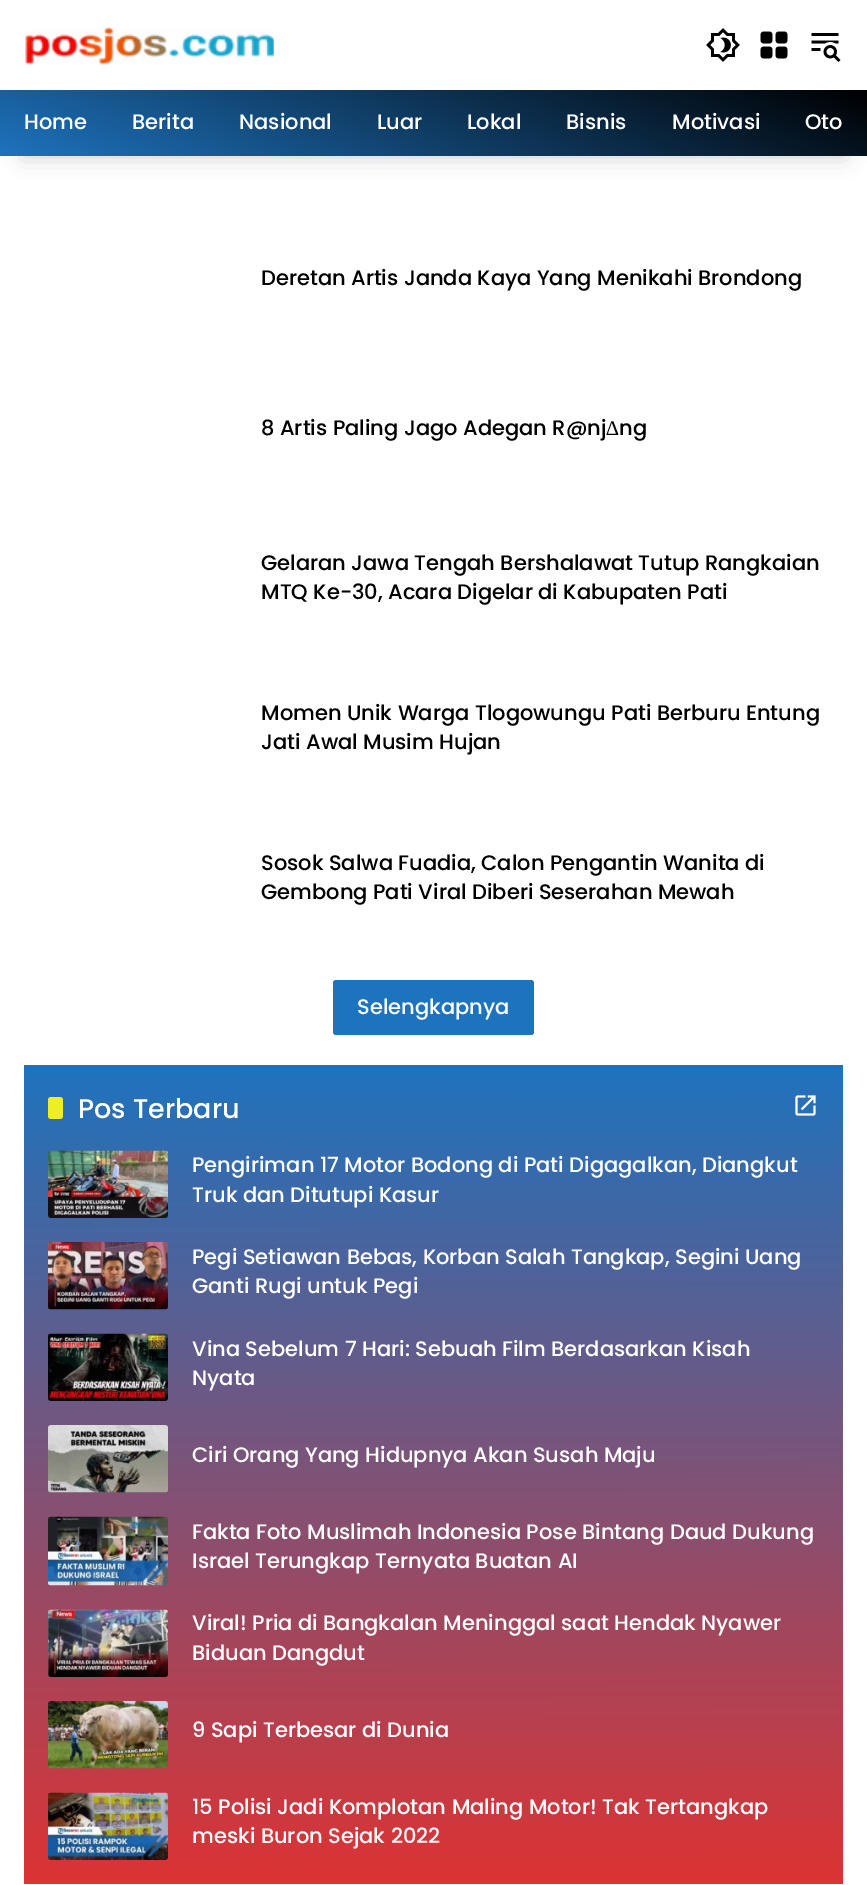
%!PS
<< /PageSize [867 1885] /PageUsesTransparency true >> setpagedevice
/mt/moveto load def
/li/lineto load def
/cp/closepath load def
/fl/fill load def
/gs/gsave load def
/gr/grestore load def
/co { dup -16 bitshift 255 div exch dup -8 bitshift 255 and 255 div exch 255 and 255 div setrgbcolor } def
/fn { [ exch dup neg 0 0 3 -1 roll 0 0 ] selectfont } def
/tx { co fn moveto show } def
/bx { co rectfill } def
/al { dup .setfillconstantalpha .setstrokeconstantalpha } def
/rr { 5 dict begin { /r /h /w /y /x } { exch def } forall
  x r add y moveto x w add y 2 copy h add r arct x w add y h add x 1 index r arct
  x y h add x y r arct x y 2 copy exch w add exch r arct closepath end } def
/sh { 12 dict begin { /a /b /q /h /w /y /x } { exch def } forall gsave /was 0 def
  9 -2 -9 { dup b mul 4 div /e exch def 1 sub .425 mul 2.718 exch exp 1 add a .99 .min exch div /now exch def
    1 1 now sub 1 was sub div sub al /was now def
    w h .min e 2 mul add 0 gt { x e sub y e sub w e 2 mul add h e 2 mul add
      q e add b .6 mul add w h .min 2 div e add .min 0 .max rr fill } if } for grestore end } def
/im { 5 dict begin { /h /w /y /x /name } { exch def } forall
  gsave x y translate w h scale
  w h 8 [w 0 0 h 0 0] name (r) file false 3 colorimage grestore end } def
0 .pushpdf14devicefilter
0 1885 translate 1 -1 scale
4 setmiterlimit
0 0 867 1885 16#FFFFFF bx
(media/1.raw) 25 27 249 38 im
(media/2.raw) 706 28 34 34 im
(media/3.raw) 760 31 28 28 im
(media/4.raw) 811 33 30 29 im
16#000000 co
23 135 822 21 0 11 .2 sh
gs 0 90 mt 867 90 li 867 156 li 0 156 li cp clip newpath
<< /ShadingType 2 /ColorSpace /DeviceRGB /Coords [367 297 500 -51] /Extend [true true] /Function << /FunctionType 2 /Domain [0 1] /C0 [.118 .451 .745] /C1 [0 0 0] /N 1 >> >> shfill gr
16#1E73BE co
333 980 201 55 3 rr fl
gs 24 1065 819 819 3 rr clip newpath
<< /ShadingType 2 /ColorSpace /DeviceRGB /Coords [434 1884 433 1065] /Extend [true true] /Function << /FunctionType 2 /Domain [0 1] /C0 [.867 .2 .2] /C1 [.118 .451 .745] /N 1 >> >> shfill gr
16#EEEE22 co
48 1097 15 22 3 rr fl
(media/5.raw) 795 1095 21 21 im
(media/6.raw) 48 1150 120 68 im
(media/7.raw) 48 1242 120 68 im
(media/8.raw) 48 1333 120 68 im
(media/9.raw) 48 1425 120 68 im
(media/10.raw) 48 1516 120 70 im
(media/11.raw) 48 1609 120 68 im
(media/12.raw) 48 1701 120 68 im
(media/13.raw) 48 1792 120 68 im
(Home) 24 129 /Poppins-Medium 21 16#FFFFFF tx
(Berita) 132 129 /Poppins-Medium 21 16#FFFFFF tx
(Nasional) 239 129 /Poppins-Medium 21 16#FFFFFF tx
(Luar) 377 129 /Poppins-Medium 21 16#FFFFFF tx
(Lokal) 467 129 /Poppins-Medium 21 16#FFFFFF tx
(Bisnis) 566 129 /Poppins-Medium 21 16#FFFFFF tx
(Motivasi) 672 129 /Poppins-Medium 21 16#FFFFFF tx
(Oto) 805 129 /Poppins-Medium 21 16#FFFFFF tx
(Deretan Artis Janda Kaya Yang Menikahi Brondong) 261 285 /Poppins-Medium 21 16#000000 tx
(8 Artis Paling Jago Adegan R@nj) 261 435 /Poppins-Medium 21 16#000000 tx
(∆) 606 435 /LiberationSerif-Regular 21 16#000000 tx
(ng) 619 435 /Poppins-Medium 21 16#000000 tx
(Gelaran Jawa Tengah Bershalawat Tutup Rangkaian) 261 570 /Poppins-Medium 21 16#000000 tx
(MTQ Ke-30, Acara Digelar di Kabupaten Pati) 261 599 /Poppins-Medium 21 16#000000 tx
(Momen Unik Warga Tlogowungu Pati Berburu Entung) 261 720 /Poppins-Medium 21 16#000000 tx
(Jati Awal Musim Hujan) 261 749 /Poppins-Medium 21 16#000000 tx
(Sosok Salwa Fuadia, Calon Pengantin Wanita di) 261 870 /Poppins-Medium 21 16#000000 tx
(Gembong Pati Viral Diberi Seserahan Mewah) 261 899 /Poppins-Medium 21 16#000000 tx
(Selengkapnya) 357 1014 /Poppins-Medium 21 16#FFFFFF tx
(Pos Terbaru) 78 1118 /Poppins-Medium 27 16#FFFFFF tx
(Pengiriman 17 Motor Bodong di Pati Digagalkan, Diangkut) 192 1172 /Poppins-Medium 21 16#FFFFFF tx
(Truk dan Ditutupi Kasur) 192 1202 /Poppins-Medium 21 16#FFFFFF tx
(Pegi Setiawan Bebas, Korban Salah Tangkap, Segini Uang) 192 1264 /Poppins-Medium 21 16#FFFFFF tx
(Ganti Rugi untuk Pegi) 192 1293 /Poppins-Medium 21 16#FFFFFF tx
(Vina Sebelum 7 Hari: Sebuah Film Berdasarkan Kisah) 192 1356 /Poppins-Medium 21 16#FFFFFF tx
(Nyata) 192 1385 /Poppins-Medium 21 16#FFFFFF tx
(Ciri Orang Yang Hidupnya Akan Susah Maju) 192 1462 /Poppins-Medium 21 16#FFFFFF tx
(Fakta Foto Muslimah Indonesia Pose Bintang Daud Dukung) 192 1539 /Poppins-Medium 21 16#FFFFFF tx
(Israel Terungkap Ternyata Buatan AI) 192 1568 /Poppins-Medium 21 16#FFFFFF tx
(Viral! Pria di Bangkalan Meninggal saat Hendak Nyawer) 192 1630 /Poppins-Medium 21 16#FFFFFF tx
(Biduan Dangdut) 192 1660 /Poppins-Medium 21 16#FFFFFF tx
(9 Sapi Terbesar di Dunia) 192 1737 /Poppins-Medium 21 16#FFFFFF tx
(15 Polisi Jadi Komplotan Maling Motor! Tak Tertangkap) 192 1814 /Poppins-Medium 21 16#FFFFFF tx
(meski Buron Sejak 2022) 192 1843 /Poppins-Medium 21 16#FFFFFF tx
.poppdf14devicefilter showpage
